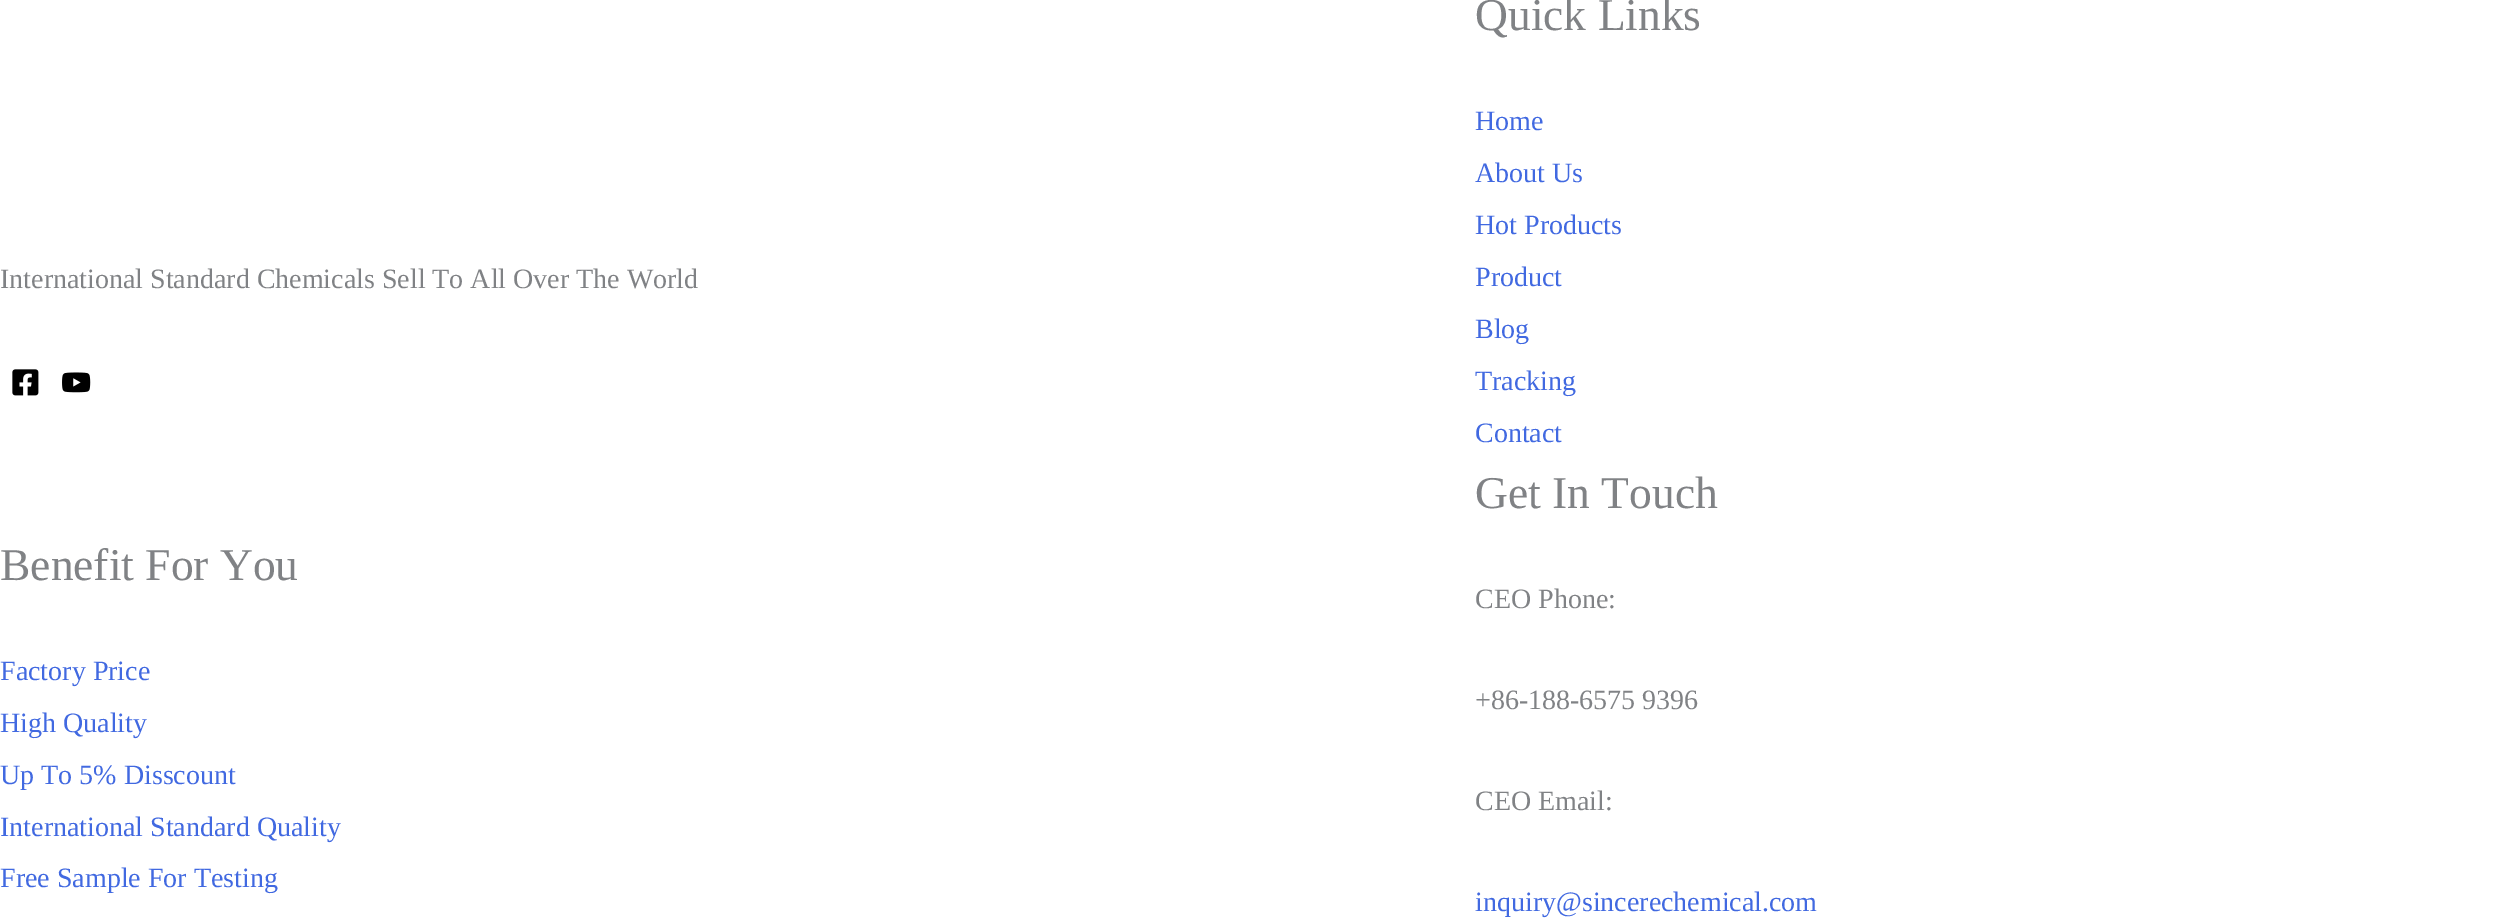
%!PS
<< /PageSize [2505 921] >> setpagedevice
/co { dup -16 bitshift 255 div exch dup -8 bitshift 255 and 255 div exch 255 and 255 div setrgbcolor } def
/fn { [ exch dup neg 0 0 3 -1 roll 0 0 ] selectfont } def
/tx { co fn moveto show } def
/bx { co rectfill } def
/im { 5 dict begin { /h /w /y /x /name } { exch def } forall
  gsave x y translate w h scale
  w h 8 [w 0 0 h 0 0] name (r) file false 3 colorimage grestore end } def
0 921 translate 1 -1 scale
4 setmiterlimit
0 0 2505 921 16#FFFFFF bx
(media/1.raw) 12 369 27 27 im
(media/2.raw) 62 372 29 21 im
(International Standard Chemicals Sell To All Over The World) 0 288 /LiberationSerif-Regular 28 16#808285 tx
(Quick Links) 1475 30 /LiberationSerif-Regular 45.5 16#808285 tx
(Home) 1475 130 /LiberationSerif-Regular 28 16#4169E1 tx
(About Us) 1475 182 /LiberationSerif-Regular 28 16#4169E1 tx
(Hot Products) 1475 234 /LiberationSerif-Regular 28 16#4169E1 tx
(Product) 1475 286 /LiberationSerif-Regular 28 16#4169E1 tx
(Blog) 1475 338 /LiberationSerif-Regular 28 16#4169E1 tx
(Tracking) 1475 390 /LiberationSerif-Regular 28 16#4169E1 tx
(Contact) 1475 442 /LiberationSerif-Regular 28 16#4169E1 tx
(Benefit For You) 0 580 /LiberationSerif-Regular 45.5 16#808285 tx
(Factory Price) 0 680 /LiberationSerif-Regular 28 16#4169E1 tx
(High Quality) 0 732 /LiberationSerif-Regular 28 16#4169E1 tx
(Up To 5% Disscount) 0 784 /LiberationSerif-Regular 28 16#4169E1 tx
(International Standard Quality) 0 836 /LiberationSerif-Regular 28 16#4169E1 tx
(Free Sample For Testing) 0 887 /LiberationSerif-Regular 28 16#4169E1 tx
(Get In Touch) 1475 508 /LiberationSerif-Regular 45.5 16#808285 tx
(CEO Phone:) 1475 608 /LiberationSerif-Regular 28 16#808285 tx
(+86-188-6575 9396) 1475 709 /LiberationSerif-Regular 28 16#808285 tx
(CEO Email:) 1475 810 /LiberationSerif-Regular 28 16#808285 tx
(inquiry@sincerechemical.com) 1475 911 /LiberationSerif-Regular 28 16#4169E1 tx
showpage
